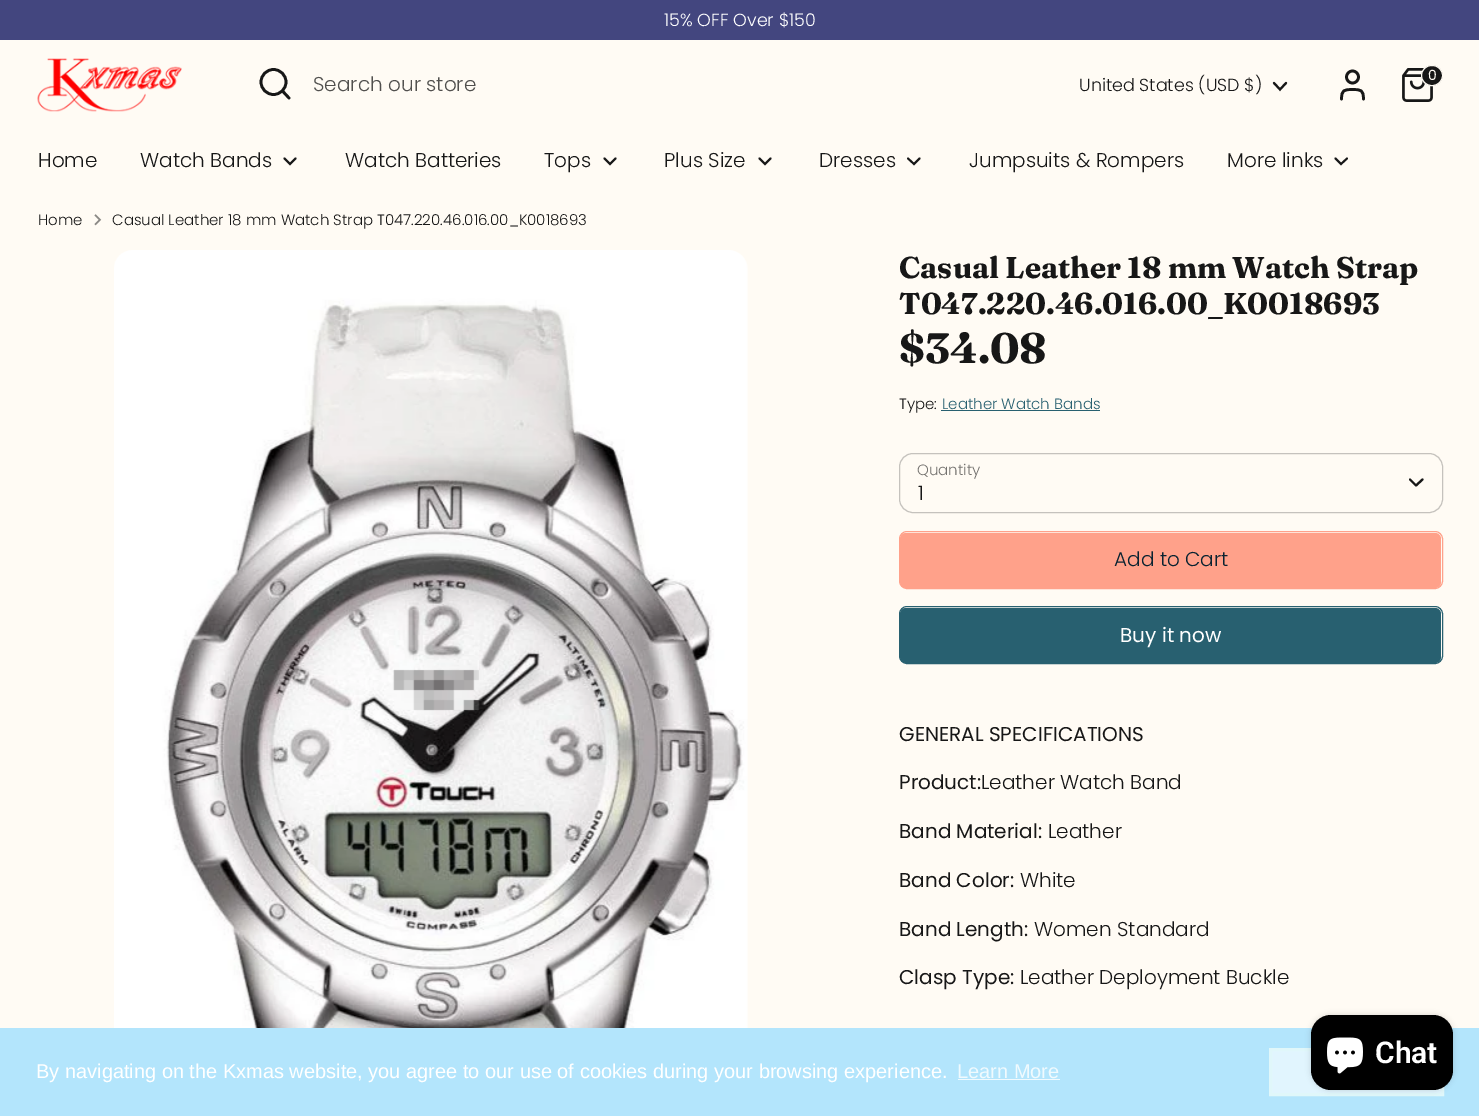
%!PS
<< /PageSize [1479 1116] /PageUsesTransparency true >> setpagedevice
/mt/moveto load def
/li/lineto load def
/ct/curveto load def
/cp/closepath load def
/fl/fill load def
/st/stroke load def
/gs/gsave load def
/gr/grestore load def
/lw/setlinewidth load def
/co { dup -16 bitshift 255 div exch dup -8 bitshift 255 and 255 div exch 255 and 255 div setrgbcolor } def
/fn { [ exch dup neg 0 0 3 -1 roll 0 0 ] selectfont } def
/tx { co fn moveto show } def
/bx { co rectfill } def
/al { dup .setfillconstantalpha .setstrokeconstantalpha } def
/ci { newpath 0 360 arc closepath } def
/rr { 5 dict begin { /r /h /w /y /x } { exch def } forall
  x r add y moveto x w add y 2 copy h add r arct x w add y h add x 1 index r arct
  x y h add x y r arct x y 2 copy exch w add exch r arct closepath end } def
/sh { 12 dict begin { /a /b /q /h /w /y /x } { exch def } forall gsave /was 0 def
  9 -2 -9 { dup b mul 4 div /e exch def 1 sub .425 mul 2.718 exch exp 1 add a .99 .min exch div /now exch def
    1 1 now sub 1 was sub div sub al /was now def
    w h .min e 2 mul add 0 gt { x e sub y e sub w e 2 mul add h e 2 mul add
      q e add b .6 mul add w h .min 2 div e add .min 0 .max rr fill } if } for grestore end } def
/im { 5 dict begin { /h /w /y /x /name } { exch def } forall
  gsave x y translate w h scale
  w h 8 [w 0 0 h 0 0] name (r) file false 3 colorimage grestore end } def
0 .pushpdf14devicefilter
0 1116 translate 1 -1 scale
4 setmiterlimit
0 0 1479 1116 16#FFFBF4 bx
0 0 1479 40 16#43467F bx
(media/1.raw) 37 58 145 54 im
16#171717 co
2.7 lw
273.5 82 12.5 ci st
1 setlinecap
1 setlinejoin
289 98 mt 282.5 91 li st
2.1 lw
0 setlinejoin
1274 83 mt 1280 89.5 li 1286 83 li st
2.7 lw
1 setlinejoin
1363.5 99 mt 1363.5 90 1361 89.5 1352.5 89.5 ct 1344 89.5 1341.5 90 1341.5 99 ct st
0 setlinecap
0 setlinejoin
1352.5 77 6 ci st
(media/2.raw) 1402 68 31 34 im
1421.5 65.5 21 20 10 rr gs fl gr
16#FFFBF4 co
1 lw
st
16#171717 co
1.9 lw
1 setlinecap
284.5 158.5 mt 290 164 li 295.5 158.5 li st
604.5 158.5 mt 610 164 li 615.5 158.5 li st
759.5 158.5 mt 765 164 li 770.5 158.5 li st
908 158.5 mt 914 164 li 919.5 158.5 li st
1335.5 158.5 mt 1341 164 li 1347 158.5 li st
(media/3.raw) 94 214 8 12 im
(media/4.raw) 114 250 634 778 im
941 410 159 1 16#286070 bx
16#C5C2BD co
1 lw
0 setlinecap
899.5 453.5 543 59 13.5 rr st
16#171717 co
2.1 lw
1 setlinecap
1 setlinejoin
1410 479.5 mt 1416 485.5 li 1422.5 479.5 li st
16#FFA18A co
1 lw
0 setlinecap
0 setlinejoin
899.5 531.5 543 57 7.5 rr st
900 533 541 55 6 rr fl
16#286070 co
899.5 606.5 543 57 7.5 rr st
900 608 541 55 6 rr fl
0 1028 1479 88 16#B3E5FC bx
16#E1F5FE co
1270.5 1049.5 mt 1442.5 1049.5 li 1442.5 1094.5 li 1270.5 1094.5 li cp gs fl gr
16#E0F7FA co
3 lw
st
16#000000 co
1311 1015 142 75 20 3 .15 sh
1311 1015 142 75 20 rr fl
(media/5.raw) 1327 1037 36 37 im
958 1079 102 1 16#F0FAFE bx
(15% OFF Over $150) 664 26 /Poppins-Light 17.5 16#FFFFFF tx
(Search our store) 313 91 /Poppins-Light 20 16#51504E tx
(United States \(USD $\)) 1079 91 /Poppins-Light 17.5 16#171717 tx
(0) 1428 80 /Poppins-Regular 14 16#FFFBF4 tx
(Home) 38 167 /Poppins-Light 20 16#171717 tx
(Watch Bands) 140 167 /Poppins-Light 20 16#171717 tx
(Watch Batteries) 345 167 /Poppins-Light 20 16#171717 tx
(Tops) 544 167 /Poppins-Light 20 16#171717 tx
(Plus Size) 664 167 /Poppins-Light 20 16#171717 tx
(Dresses) 819 167 /Poppins-Light 20 16#171717 tx
(Jumpsuits & Rompers) 969 167 /Poppins-Light 20 16#171717 tx
(More links) 1227 167 /Poppins-Light 20 16#171717 tx
(Home) 38 225 /Poppins-Light 15 16#171717 tx
(Casual Leather 18 mm Watch Strap T047.220.46.016.00_K0018693) 112 225 /Poppins-Light 15 16#171717 tx
(Casual Leather 18 mm Watch Strap) 899 278 /Fraunces-Bold 30 16#171717 tx
(T047.220.46.016.00_K0018693) 899 314 /Fraunces-Bold 30 16#171717 tx
($34.08) 899 363 /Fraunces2-Bold 42.5 16#171717 tx
(Type:) 899 409 /Poppins-Light 15 16#171717 tx
(Leather Watch Bands) 942 409 /Poppins-Light 15 16#286070 tx
(Quantity) 917 475 /Poppins-Light 15 16#74726F tx
(1) 918 500 /Poppins-Light 20 16#171717 tx
(Add to Cart) 1114 566 /Poppins-Light 20 16#092331 tx
(Buy it now) 1120 642 /Poppins-Regular 20 16#FFFFFF tx
(GENERAL SPECIFICATIONS) 899 741 /Poppins-Regular 20 16#171717 tx
(Product:) 899 789 /Poppins-Regular 20 16#171717 tx
(Leather Watch Band) 981 789 /Poppins-Light 20 16#171717 tx
(Band Material:) 899 838 /Poppins-Regular 20 16#171717 tx
(Leather) 1048 838 /Poppins-Light 20 16#171717 tx
(Band Color:) 899 887 /Poppins-Regular 20 16#171717 tx
(White) 1020 887 /Poppins-Light 20 16#171717 tx
(Band Length:) 899 936 /Poppins-Regular 20 16#171717 tx
(Women Standard) 1034 936 /Poppins-Light 20 16#171717 tx
(Clasp Type:) 899 984 /Poppins-Regular 20 16#171717 tx
(Leather Deployment Buckle) 1020 984 /Poppins-Light 20 16#171717 tx
(Chat) 1375 1063 /Roboto-SemiBold 30 16#FFFFFF tx
(By navigating on the Kxmas website, you agree to our use of cookies during your browsing experience.) 36 1078 /LiberationSans-Regular 20 16#FFFFFF tx
(Learn More) 957 1078 /LiberationSans-Regular 20 16#F0FAFE tx
.poppdf14devicefilter showpage
